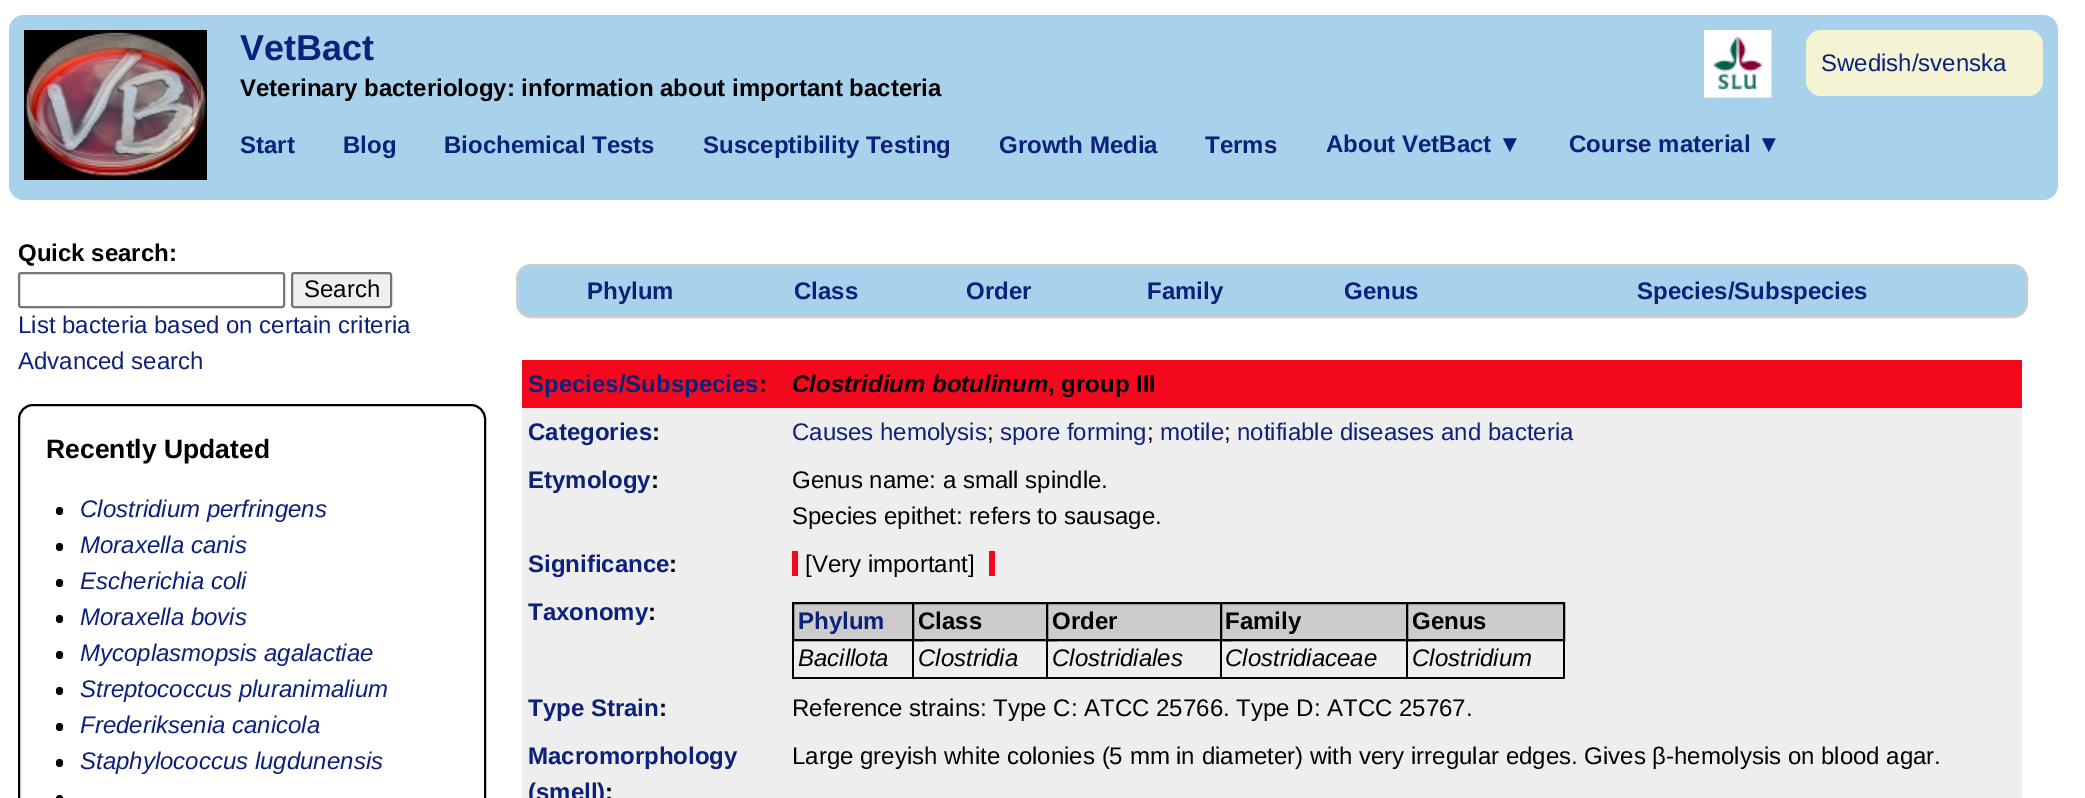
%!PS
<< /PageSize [2085 798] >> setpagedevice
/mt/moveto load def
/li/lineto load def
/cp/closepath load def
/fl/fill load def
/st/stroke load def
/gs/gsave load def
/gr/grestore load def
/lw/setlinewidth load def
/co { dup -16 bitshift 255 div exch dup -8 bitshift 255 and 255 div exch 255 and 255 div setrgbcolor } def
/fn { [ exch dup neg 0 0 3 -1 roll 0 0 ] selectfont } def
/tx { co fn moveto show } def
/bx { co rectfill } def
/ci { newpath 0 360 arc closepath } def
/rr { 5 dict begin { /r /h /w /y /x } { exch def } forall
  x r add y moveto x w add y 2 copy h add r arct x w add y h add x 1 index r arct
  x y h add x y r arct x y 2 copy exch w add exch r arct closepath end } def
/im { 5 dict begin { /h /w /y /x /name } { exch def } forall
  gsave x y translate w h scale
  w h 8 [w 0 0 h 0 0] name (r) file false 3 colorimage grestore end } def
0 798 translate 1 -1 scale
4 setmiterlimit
0 0 2085 798 16#FFFFFF bx
16#A8D2EC co
9 15 2049 185 15 rr fl
(media/1.raw) 24 30 183 150 im
(media/2.raw) 1704 30 68 68 im
16#F4F4D5 co
1806 30 237 66 15 rr fl
16#767676 co
2 lw
19 273 265 34 2 rr st
16#EFEFEF co
292 273 99 34 2 rr gs fl gr
16#767676 co
st
16#000000 co
19 405 466 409 14 rr st
56 507 7 8 3.5 rr fl
56 543 7 8 3.5 rr fl
56 579 7 8 3.5 rr fl
56 615 7 8 3.5 rr fl
56 651 7 8 3.5 rr fl
56 687 7 8 3.5 rr fl
56 723 7 8 3.5 rr fl
56 759 7 8 3.5 rr fl
59.5 798.5 3.5 ci fl
16#A8D2EC co
517 265 1510 52 14 rr gs fl gr
16#CCCCCC co
st
522 360 1500 48 16#F3081E bx
522 408 1500 390 16#EEEEEE bx
792 551 6 25 16#F3081E bx
989 551 6 25 16#F3081E bx
794 604 118 35 16#CCCCCC bx
16#000000 co
793 603 130 37 rectstroke
792 677 614 2 16#000000 bx
792 641 2 37 16#000000 bx
914 604 132 35 16#CCCCCC bx
16#000000 co
913 603 144 37 rectstroke
912 641 2 37 16#000000 bx
1048 604 172 35 16#CCCCCC bx
16#000000 co
1047 603 184 37 rectstroke
1046 641 2 37 16#000000 bx
1222 604 184 35 16#CCCCCC bx
16#000000 co
1221 603 197 37 rectstroke
1220 641 2 37 16#000000 bx
16#CCCCCC co
1407 603 mt 1564 603 li 1564 640 li 1407 640 li cp gs fl gr
16#000000 co
st
1563 641 2 37 16#000000 bx
1406 677 159 2 16#000000 bx
1406 641 2 37 16#000000 bx
(VetBact) 240 60 /LiberationSans-Bold 36 16#0C217A tx
(Swedish/svenska) 1821 71 /LiberationSans-Regular 24 16#0C217A tx
(Veterinary bacteriology: information about important bacteria) 240 96 /LiberationSans-Bold 24 16#000000 tx
(Start) 240 153 /LiberationSans-Bold 24 16#0C217A tx
(Blog) 343 153 /LiberationSans-Bold 24 16#0C217A tx
(Biochemical Tests) 444 153 /LiberationSans-Bold 24 16#0C217A tx
(Susceptibility Testing) 703 153 /LiberationSans-Bold 24 16#0C217A tx
(Growth Media) 999 153 /LiberationSans-Bold 24 16#0C217A tx
(Terms) 1205 153 /LiberationSans-Bold 24 16#0C217A tx
(About VetBact) 1326 152 /LiberationSans-Bold 24 16#0C217A tx
(▼) 1498 152 /LiberationSans-BoldItalic 24 16#0C217A tx
(Course material) 1569 152 /LiberationSans-Bold 24 16#0C217A tx
(▼) 1757 152 /LiberationSans-BoldItalic 24 16#0C217A tx
(Quick search:) 18 261 /LiberationSans-Bold 24 16#000000 tx
(Search) 304 297 /LiberationSans-Regular 24 16#000000 tx
(List bacteria based on certain criteria) 18 333 /LiberationSans-Regular 24 16#0C217A tx
(Advanced search) 18 369 /LiberationSans-Regular 24 16#0C217A tx
(Recently Updated) 46 458 /LiberationSans-Bold 26.5 16#000000 tx
(Clostridium perfringens) 80 517 /LiberationSans-Italic 24 16#0C217A tx
(Moraxella canis) 80 553 /LiberationSans-Italic 24 16#0C217A tx
(Escherichia coli) 80 589 /LiberationSans-Italic 24 16#0C217A tx
(Moraxella bovis) 80 625 /LiberationSans-Italic 24 16#0C217A tx
(Mycoplasmopsis agalactiae) 80 661 /LiberationSans-Italic 24 16#0C217A tx
(Streptococcus pluranimalium) 80 697 /LiberationSans-Italic 24 16#0C217A tx
(Frederiksenia canicola) 80 733 /LiberationSans-Italic 24 16#0C217A tx
(Staphylococcus lugdunensis) 80 769 /LiberationSans-Italic 24 16#0C217A tx
(Phylum) 587 299 /LiberationSans-Bold 24 16#0C217A tx
(Class) 794 299 /LiberationSans-Bold 24 16#0C217A tx
(Order) 966 299 /LiberationSans-Bold 24 16#0C217A tx
(Family) 1147 299 /LiberationSans-Bold 24 16#0C217A tx
(Genus) 1344 299 /LiberationSans-Bold 24 16#0C217A tx
(Species/Subspecies) 1637 299 /LiberationSans-Bold 24 16#0C217A tx
(Species/Subspecies) 528 392 /LiberationSans-Bold 24 16#0C217A tx
(:) 759 392 /LiberationSans-Bold 24 16#000000 tx
(Clostridium botulinum) 792 392 /LiberationSans-BoldItalic 24 16#000000 tx
(, group III) 1048 392 /LiberationSans-Bold 24 16#000000 tx
(Categories) 528 440 /LiberationSans-Bold 24 16#0C217A tx
(:) 652 440 /LiberationSans-Bold 24 16#000000 tx
(Causes hemolysis) 792 440 /LiberationSans-Regular 24 16#0C217A tx
(;) 987 440 /LiberationSans-Regular 24 16#000000 tx
(spore forming) 1000 440 /LiberationSans-Regular 24 16#0C217A tx
(;) 1147 440 /LiberationSans-Regular 24 16#000000 tx
(motile) 1160 440 /LiberationSans-Regular 24 16#0C217A tx
(;) 1224 440 /LiberationSans-Regular 24 16#000000 tx
(notifiable diseases and bacteria) 1237 440 /LiberationSans-Regular 24 16#0C217A tx
(Etymology) 528 488 /LiberationSans-Bold 24 16#0C217A tx
(:) 651 488 /LiberationSans-Bold 24 16#000000 tx
(Genus name: a small spindle.) 792 488 /LiberationSans-Regular 24 16#000000 tx
(Species epithet: refers to sausage.) 792 524 /LiberationSans-Regular 24 16#000000 tx
(Significance) 528 572 /LiberationSans-Bold 24 16#0C217A tx
(:) 669 572 /LiberationSans-Bold 24 16#000000 tx
([Very important]) 805 572 /LiberationSans-Regular 24 16#000000 tx
(Taxonomy) 528 620 /LiberationSans-Bold 24 16#0C217A tx
(:) 648 620 /LiberationSans-Bold 24 16#000000 tx
(Phylum) 798 629 /LiberationSans-Bold 24 16#0C217A tx
(Bacillota) 798 666 /LiberationSans-Italic 24 16#000000 tx
(Class) 918 629 /LiberationSans-Bold 24 16#000000 tx
(Clostridia) 918 666 /LiberationSans-Italic 24 16#000000 tx
(Order) 1052 629 /LiberationSans-Bold 24 16#000000 tx
(Clostridiales) 1052 666 /LiberationSans-Italic 24 16#000000 tx
(Family) 1225 629 /LiberationSans-Bold 24 16#000000 tx
(Clostridiaceae) 1225 666 /LiberationSans-Italic 24 16#000000 tx
(Genus) 1412 629 /LiberationSans-Bold 24 16#000000 tx
(Clostridium) 1412 666 /LiberationSans-Italic 24 16#000000 tx
(Type Strain) 528 716 /LiberationSans-Bold 24 16#0C217A tx
(:) 659 716 /LiberationSans-Bold 24 16#000000 tx
(Reference strains: Type C: ATCC 25766. Type D: ATCC 25767.) 792 716 /LiberationSans-Regular 24 16#000000 tx
(Macromorphology) 528 764 /LiberationSans-Bold 24 16#0C217A tx
(\(smell\)) 528 800 /LiberationSans-Bold 24 16#0C217A tx
(:) 605 800 /LiberationSans-Bold 24 16#000000 tx
(Large greyish white colonies \(5 mm in diameter\) with very irregular edges. Gives β-hemolysis on blood agar.) 792 764 /LiberationSans-Regular 24 16#000000 tx
showpage
